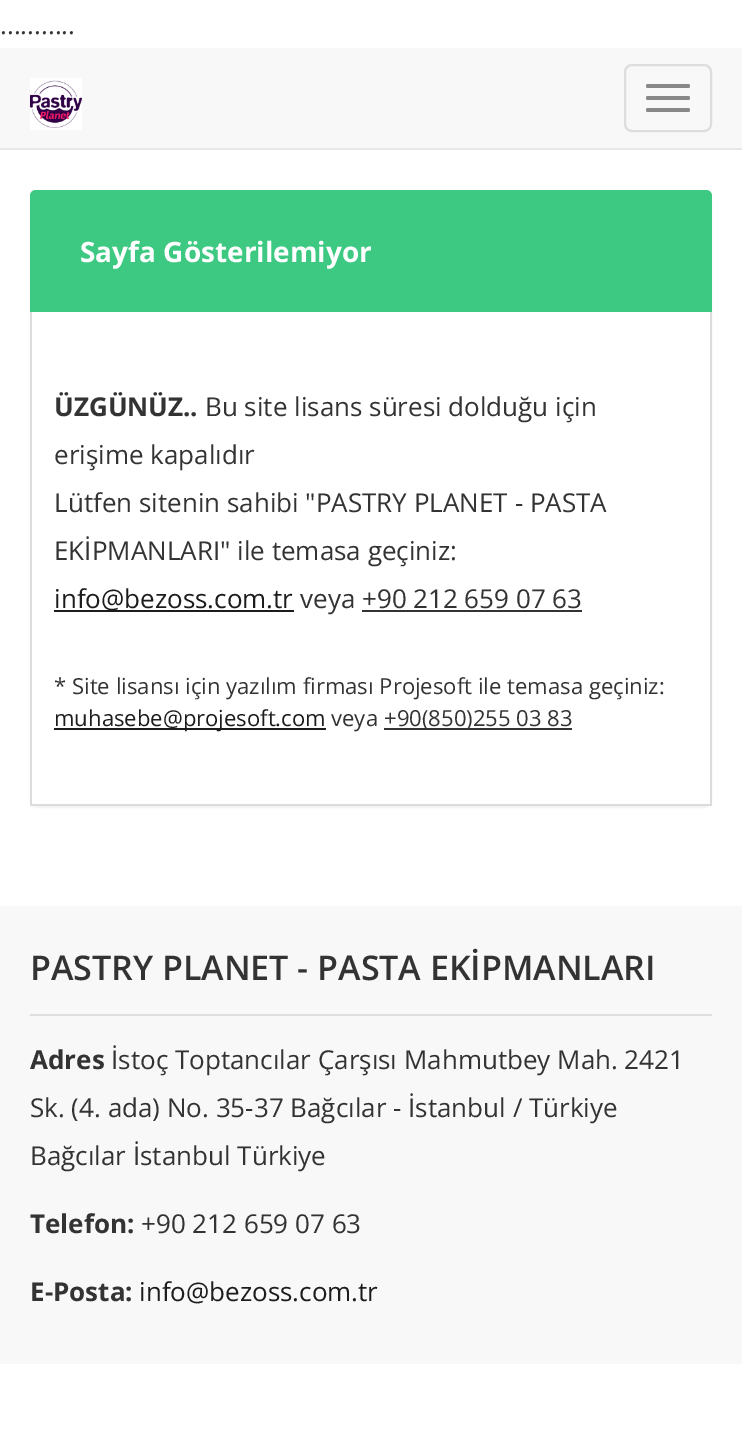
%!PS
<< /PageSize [742 1430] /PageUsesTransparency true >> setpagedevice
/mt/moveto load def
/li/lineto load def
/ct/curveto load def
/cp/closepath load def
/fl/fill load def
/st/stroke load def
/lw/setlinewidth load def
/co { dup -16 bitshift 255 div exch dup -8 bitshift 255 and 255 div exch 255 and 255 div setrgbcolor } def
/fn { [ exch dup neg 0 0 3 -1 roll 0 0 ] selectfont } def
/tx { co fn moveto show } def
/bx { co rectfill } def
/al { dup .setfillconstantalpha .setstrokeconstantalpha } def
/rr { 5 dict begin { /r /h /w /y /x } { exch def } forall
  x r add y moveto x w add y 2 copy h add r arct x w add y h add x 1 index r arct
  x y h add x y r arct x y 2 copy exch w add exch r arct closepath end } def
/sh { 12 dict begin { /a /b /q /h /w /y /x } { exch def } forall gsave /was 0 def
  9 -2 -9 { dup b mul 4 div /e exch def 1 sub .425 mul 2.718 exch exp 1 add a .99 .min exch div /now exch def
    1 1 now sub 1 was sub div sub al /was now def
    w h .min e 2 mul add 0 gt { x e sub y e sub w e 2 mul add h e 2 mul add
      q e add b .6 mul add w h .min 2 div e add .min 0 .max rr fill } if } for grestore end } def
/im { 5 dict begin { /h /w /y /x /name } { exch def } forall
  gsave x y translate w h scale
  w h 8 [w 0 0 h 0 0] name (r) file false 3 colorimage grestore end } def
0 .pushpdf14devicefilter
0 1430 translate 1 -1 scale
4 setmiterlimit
0 0 742 1430 16#FFFFFF bx
0 48 742 100 16#F8F8F8 bx
0 148 742 2 16#E7E7E7 bx
(media/1.raw) 30 78 52 52 im
16#DDDDDD co
2 lw
625 65 86 66 7 rr st
16#888888 co
646 84 44 4 2 rr fl
646 96 44 4 2 rr fl
646 108 44 4 2 rr fl
16#000000 co
30 192 682 616 8 1 .05 sh
16#FFFFFF co
30 190 682 616 8 rr fl
16#3EC983 co
36 190 mt 706 190 li 709.5 190 712 192.5 712 196 ct 712 312 li 30 312 li 30 196 li 30 192.5 32.5 190 36 190 ct cp fl
710 312 2 494 16#DCDCDC bx
30 804 682 2 16#DCDCDC bx
30 312 2 494 16#DCDCDC bx
54 610 240 2 16#1C1C1C bx
362 610 220 2 16#333333 bx
54 728 272 2 16#1C1C1C bx
384 728 188 2 16#333333 bx
0 906 742 458 16#F8F8F8 bx
30 1014 682 2 16#DEDEDE bx
(...........) 0 34 /OpenSans-Regular 26 16#333333 tx
(Sayfa Gösterilemiyor) 80 262 /OpenSans-Bold 28 16#FFFFFF tx
(ÜZGÜNÜZ..) 54 416 /OpenSans-Bold 26 16#333333 tx
(Bu site lisans süresi dolduğu için) 205 416 /OpenSans-Regular 26 16#333333 tx
(erişime kapalıdır) 54 464 /OpenSans-Regular 26 16#333333 tx
(Lütfen sitenin sahibi "PASTRY PLANET - PASTA) 54 512 /OpenSans-Regular 26 16#333333 tx
(EKİPMANLARI" ile temasa geçiniz:) 54 560 /OpenSans-Regular 26 16#333333 tx
(info@bezoss.com.tr) 54 608 /OpenSans-Regular 26 16#1C1C1C tx
(veya +90 212 659 07 63) 300 608 /OpenSans-Regular 26 16#333333 tx
(* Site lisansı için yazılım firması Projesoft ile temasa geçiniz:) 54 694 /OpenSans-Regular 22.1 16#333333 tx
(muhasebe@projesoft.com) 54 726 /OpenSans-Regular 22.1 16#1C1C1C tx
(veya) 331 726 /OpenSans-Regular 22.1 16#333333 tx
(+90\(850\)255 03 83) 384 726 /OpenSans-Regular 22.1 16#333333 tx
(PASTRY PLANET - PASTA EKİPMANLARI) 30 980 /OpenSans-SemiBold 34 16#333333 tx
(Adres) 30 1069 /OpenSans-Bold 26 16#333333 tx
(İstoç Toptancılar Çarşısı Mahmutbey Mah. 2421) 111 1069 /OpenSans-Regular 26 16#333333 tx
(Sk. \(4. ada\) No. 35-37 Bağcılar - İstanbul / Türkiye) 30 1117 /OpenSans-Regular 26 16#333333 tx
(Bağcılar İstanbul Türkiye) 30 1165 /OpenSans-Regular 26 16#333333 tx
(Telefon:) 30 1233 /OpenSans-Bold 26 16#333333 tx
(+90 212 659 07 63) 141 1233 /OpenSans-Regular 26 16#333333 tx
(E-Posta:) 30 1301 /OpenSans-Bold 26 16#333333 tx
(info@bezoss.com.tr) 139 1301 /OpenSans-Regular 26 16#1C1C1C tx
.poppdf14devicefilter showpage
